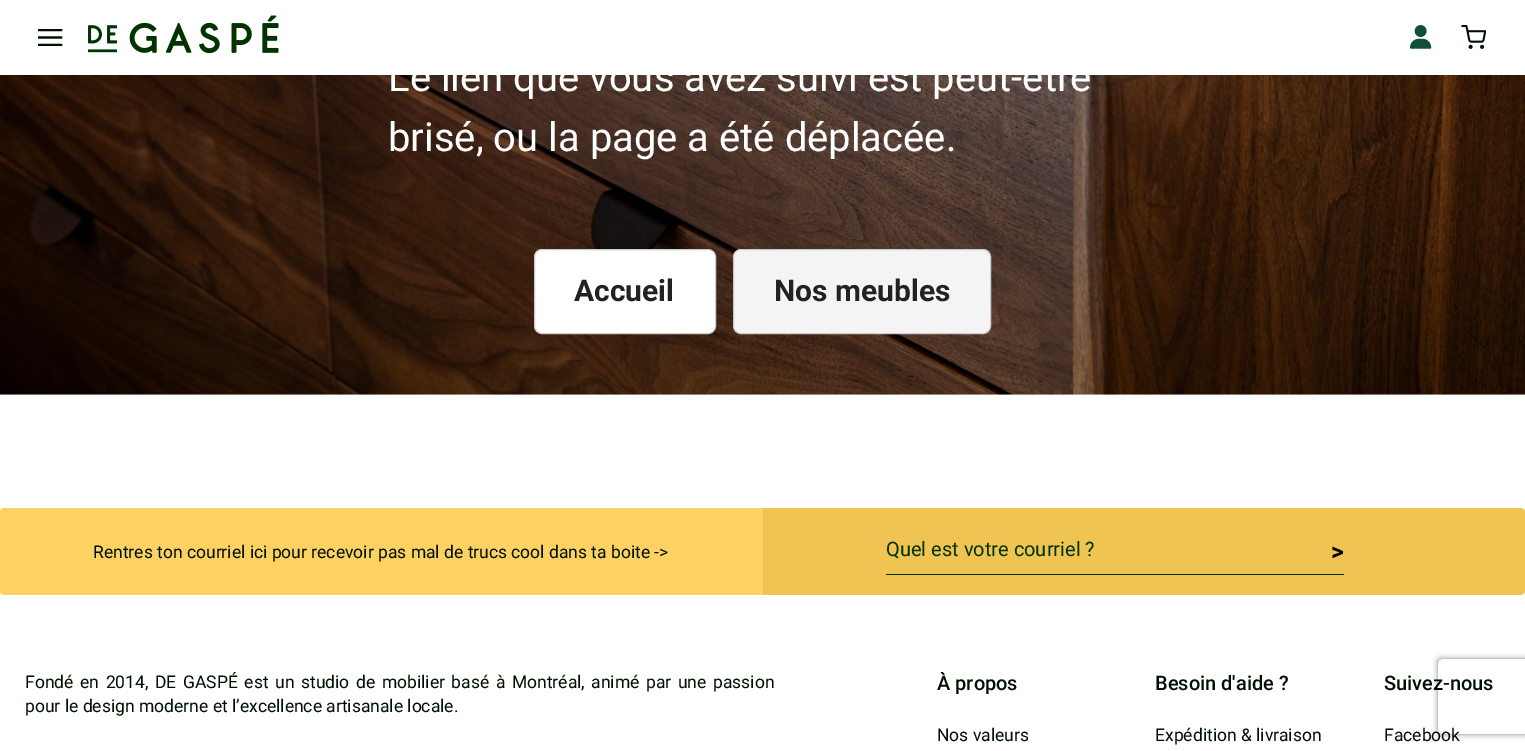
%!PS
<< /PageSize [1525 751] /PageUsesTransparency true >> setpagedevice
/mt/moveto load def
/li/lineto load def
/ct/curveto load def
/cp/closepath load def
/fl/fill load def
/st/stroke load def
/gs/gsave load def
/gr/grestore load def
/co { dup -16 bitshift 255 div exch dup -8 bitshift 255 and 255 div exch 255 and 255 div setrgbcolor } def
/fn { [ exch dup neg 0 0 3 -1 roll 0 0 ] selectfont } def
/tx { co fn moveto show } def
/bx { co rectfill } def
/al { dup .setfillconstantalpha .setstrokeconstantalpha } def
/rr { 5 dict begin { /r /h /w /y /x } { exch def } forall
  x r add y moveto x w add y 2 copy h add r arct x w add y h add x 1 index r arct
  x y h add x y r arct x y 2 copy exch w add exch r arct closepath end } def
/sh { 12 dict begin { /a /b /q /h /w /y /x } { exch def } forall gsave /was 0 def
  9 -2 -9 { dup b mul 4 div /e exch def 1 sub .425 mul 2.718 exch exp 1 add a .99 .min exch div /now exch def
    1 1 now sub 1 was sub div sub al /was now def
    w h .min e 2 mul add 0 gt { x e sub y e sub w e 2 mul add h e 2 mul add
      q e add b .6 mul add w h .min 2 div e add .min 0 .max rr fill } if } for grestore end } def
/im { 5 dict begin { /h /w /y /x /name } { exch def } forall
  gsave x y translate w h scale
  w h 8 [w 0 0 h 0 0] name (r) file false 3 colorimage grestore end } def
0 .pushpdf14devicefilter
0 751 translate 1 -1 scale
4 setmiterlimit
0 0 1525 751 16#FFFFFF bx
(media/1.raw) 38 29 25 17 im
(media/2.raw) 88 15 191 39 im
(media/3.raw) 1410 25 22 24 im
(media/4.raw) 1461 25 25 24 im
(media/5.raw) 0 75 1525 320 im
534.5 249.5 181 84 7.5 rr gs fl gr
16#CCCCCC co
st
16#F4F4F4 co
733.5 249.5 257 84 7.5 rr gs fl gr
16#CCCCCC co
st
16#FDD262 co
4 508 mt 763 508 li 763 595 li 4 595 li 2 595 0 593 0 591 ct 0 512 li 0 510 2 508 4 508 ct cp fl
16#F0C452 co
763 508 mt 1521 508 li 1523 508 1525 510 1525 512 ct 1525 591 li 1525 593 1523 595 1521 595 ct 763 595 li cp fl
886 574 458 1 16#003300 bx
gs
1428 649 mt 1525 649 li 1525 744 li 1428 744 li cp 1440.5 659 mt 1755.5 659 li 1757 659 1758 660 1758 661.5 ct 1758 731.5 li 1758 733 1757 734 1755.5 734 ct 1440.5 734 li 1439 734 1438 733 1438 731.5 ct 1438 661.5 li 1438 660 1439 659 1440.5 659 ct cp eoclip newpath
16#808080 co
1438 659 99 75 2.5 3 1 sh
gr
(Le lien que vous avez suivi est peut-être) 388 91 /Roboto-Regular 40 16#FFFFFF tx
(brisé, ou la page a été déplacée.) 388 151 /Roboto-Regular 40 16#FFFFFF tx
(Accueil) 574 301 /Roboto-Bold 30 16#222222 tx
(Nos meubles) 774 301 /Roboto-Bold 30 16#222222 tx
(Rentres ton courriel ici pour recevoir pas mal de trucs cool dans ta boite ->) 93 558 /Roboto-Regular 17.5 16#001000 tx
(Quel est votre courriel ?) 886 556 /Roboto-Regular 20 16#003300 tx
/Roboto-Bold 25 fn
16#000000 co
1331 560 mt 1 0 (>) ashow
/Roboto-Regular 17.5 fn
16#001000 co
25 688 mt 2.25 0 32 (Fondé en 2014, DE GASPÉ est un studio de mobilier basé à Montréal, animé par une passion) widthshow
(pour le design moderne et l’excellence artisanale locale.) 25 712 /Roboto-Regular 17.5 16#001000 tx
(À propos) 937 690 /Roboto-Medium 20 16#001000 tx
(Nos valeurs) 937 741 /Roboto-Regular 17.5 16#001000 tx
(Besoin d'aide ?) 1155 690 /Roboto-Medium 20 16#001000 tx
(Expédition & livraison) 1155 741 /Roboto-Regular 17.5 16#001000 tx
(Suivez-nous) 1384 690 /Roboto-Medium 20 16#001000 tx
(Facebook) 1384 741 /Roboto-Regular 17.5 16#001000 tx
.poppdf14devicefilter showpage
